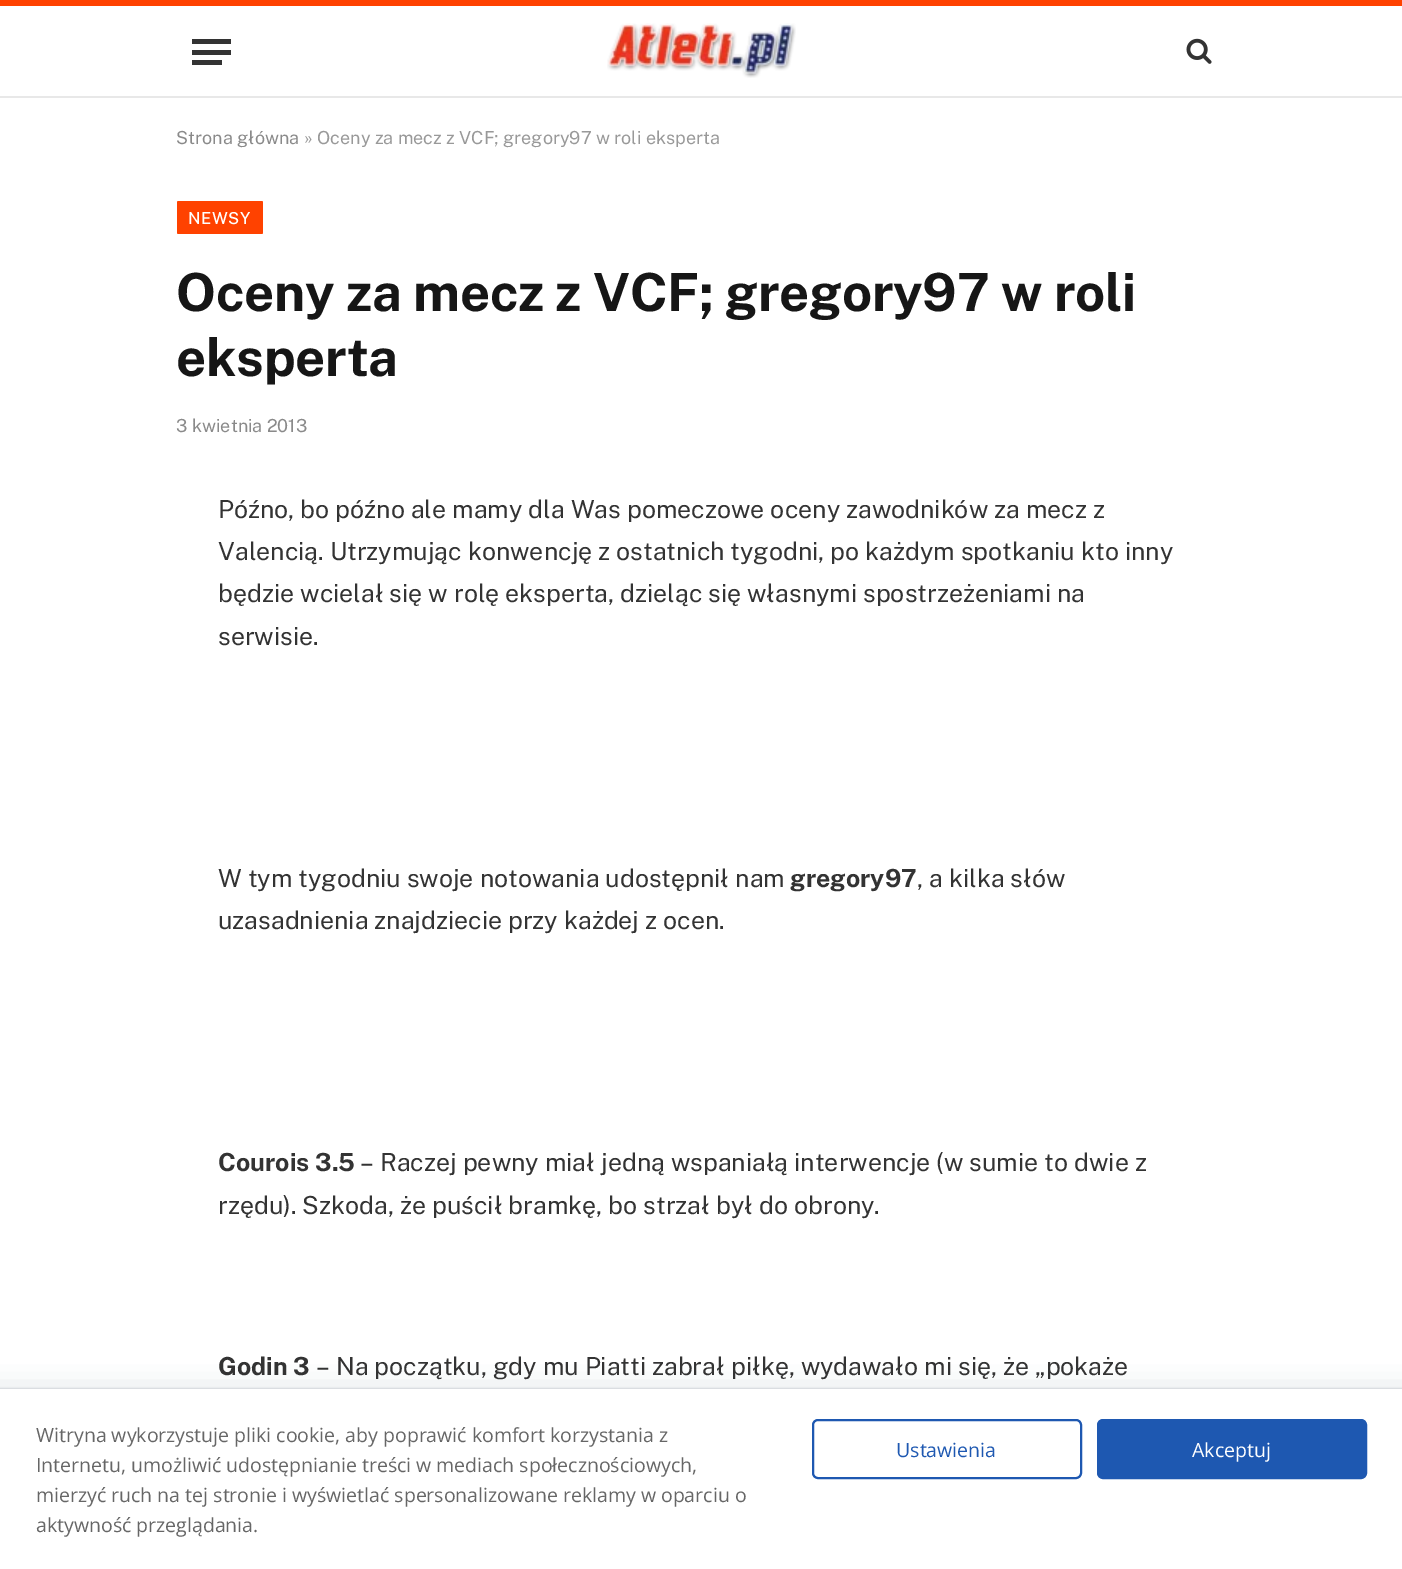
%!PS
<< /PageSize [1402 1569] /PageUsesTransparency true >> setpagedevice
/mt/moveto load def
/fl/fill load def
/st/stroke load def
/gs/gsave load def
/gr/grestore load def
/lw/setlinewidth load def
/co { dup -16 bitshift 255 div exch dup -8 bitshift 255 and 255 div exch 255 and 255 div setrgbcolor } def
/fn { [ exch dup neg 0 0 3 -1 roll 0 0 ] selectfont } def
/tx { co fn moveto show } def
/bx { co rectfill } def
/al { dup .setfillconstantalpha .setstrokeconstantalpha } def
/rr { 5 dict begin { /r /h /w /y /x } { exch def } forall
  x r add y moveto x w add y 2 copy h add r arct x w add y h add x 1 index r arct
  x y h add x y r arct x y 2 copy exch w add exch r arct closepath end } def
/sh { 12 dict begin { /a /b /q /h /w /y /x } { exch def } forall gsave /was 0 def
  9 -2 -9 { dup b mul 4 div /e exch def 1 sub .425 mul 2.718 exch exp 1 add a .99 .min exch div /now exch def
    1 1 now sub 1 was sub div sub al /was now def
    w h .min e 2 mul add 0 gt { x e sub y e sub w e 2 mul add h e 2 mul add
      q e add b .6 mul add w h .min 2 div e add .min 0 .max rr fill } if } for grestore end } def
/im { 5 dict begin { /h /w /y /x /name } { exch def } forall
  gsave x y translate w h scale
  w h 8 [w 0 0 h 0 0] name (r) file false 3 colorimage grestore end } def
0 .pushpdf14devicefilter
0 1569 translate 1 -1 scale
4 setmiterlimit
0 0 1402 1569 16#FFFFFF bx
0 0 1402 6 16#FF4200 bx
0 96 1402 2 16#E8E8E8 bx
192 60 30 5 16#333333 bx
192 39 39 5 16#333333 bx
192 50 39 5 16#333333 bx
(media/1.raw) 607 23 189 55 im
(media/2.raw) 1186 38 26 26 im
16#FF4200 co
177 201 86 33 1.5 rr fl
16#242F42 co
-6 1398 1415 162 0 15 .31 sh
0.08 al
2 lw
-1 1389 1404 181 rectstroke
1 al
0 1389 1402 180 16#FFFFFF bx
16#1E58B1 co
813 1420 268 58 5 rr st
1098 1420 268 58 5 rr gs fl gr
st
(Strona główna) 176 144 /PublicSans-Regular 18 16#8A8A8A tx
(» Oceny za mecz z VCF; gregory97 w roli eksperta) 304 144 /PublicSans-Regular 18 16#999999 tx
/PublicSans-Medium 16.5 fn
16#FFFFFF co
188 224 mt .5 0 (NEWSY) ashow
/PublicSans-Bold 52.5 fn
16#161616 co
176 311 mt -.25 0 (Oceny za mecz z VCF; gregory97 w roli) ashow
176 376 mt -.25 0 (eksperta) ashow
(3 kwietnia 2013) 176 432 /PublicSans-Regular 18 16#8A8A8A tx
(Późno, bo późno ale mamy dla Was pomeczowe oceny zawodników za mecz z) 218 518 /PublicSans-Regular 24.9 16#333333 tx
(Valencią. Utrzymując konwencję z ostatnich tygodni, po każdym spotkaniu kto inny) 218 560 /PublicSans-Regular 24.9 16#333333 tx
(będzie wcielał się w rolę eksperta, dzieląc się własnymi spostrzeżeniami na) 218 602 /PublicSans-Regular 24.9 16#333333 tx
(serwisie.) 218 645 /PublicSans-Regular 24.9 16#333333 tx
(W tym tygodniu swoje notowania udostępnił nam) 218 887 /PublicSans-Regular 24.9 16#333333 tx
(gregory97) 790 887 /PublicSans-Bold 24.9 16#333333 tx
(, a kilka słów) 917 887 /PublicSans-Regular 24.9 16#333333 tx
(uzasadnienia znajdziecie przy każdej z ocen.) 218 929 /PublicSans-Regular 24.9 16#333333 tx
(Courois 3.5) 218 1171 /PublicSans-Bold 24.9 16#333333 tx
(– Raczej pewny miał jedną wspaniałą interwencje \(w sumie to dwie z) 360 1171 /PublicSans-Regular 24.9 16#333333 tx
(rzędu\). Szkoda, że puścił bramkę, bo strzał był do obrony.) 218 1214 /PublicSans-Regular 24.9 16#333333 tx
(Godin 3) 218 1375 /PublicSans-Bold 24.9 16#333333 tx
(– Na początku, gdy mu Piatti zabrał piłkę, wydawało mi się, że „pokaże) 316 1375 /PublicSans-Regular 24.9 16#333333 tx
(Witryna wykorzystuje pliki cookie, aby poprawić komfort korzystania z) 36 1442 /OpenSans-Regular 19.5 16#666666 tx
(Internetu, umożliwić udostępnianie treści w mediach społecznościowych,) 36 1472 /OpenSans-Regular 19.5 16#666666 tx
(mierzyć ruch na tej stronie i wyświetlać spersonalizowane reklamy w oparciu o) 36 1502 /OpenSans-Regular 19.5 16#666666 tx
(aktywność przeglądania.) 36 1532 /OpenSans-Regular 19.5 16#666666 tx
(Ustawienia) 896 1457 /OpenSans-Regular 19.5 16#1E58B1 tx
(Akceptuj) 1192 1457 /OpenSans-Regular 19.5 16#FFFFFF tx
.poppdf14devicefilter showpage
